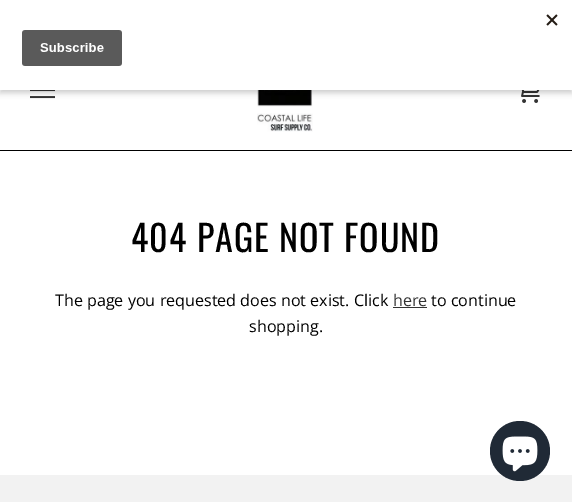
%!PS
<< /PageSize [572 502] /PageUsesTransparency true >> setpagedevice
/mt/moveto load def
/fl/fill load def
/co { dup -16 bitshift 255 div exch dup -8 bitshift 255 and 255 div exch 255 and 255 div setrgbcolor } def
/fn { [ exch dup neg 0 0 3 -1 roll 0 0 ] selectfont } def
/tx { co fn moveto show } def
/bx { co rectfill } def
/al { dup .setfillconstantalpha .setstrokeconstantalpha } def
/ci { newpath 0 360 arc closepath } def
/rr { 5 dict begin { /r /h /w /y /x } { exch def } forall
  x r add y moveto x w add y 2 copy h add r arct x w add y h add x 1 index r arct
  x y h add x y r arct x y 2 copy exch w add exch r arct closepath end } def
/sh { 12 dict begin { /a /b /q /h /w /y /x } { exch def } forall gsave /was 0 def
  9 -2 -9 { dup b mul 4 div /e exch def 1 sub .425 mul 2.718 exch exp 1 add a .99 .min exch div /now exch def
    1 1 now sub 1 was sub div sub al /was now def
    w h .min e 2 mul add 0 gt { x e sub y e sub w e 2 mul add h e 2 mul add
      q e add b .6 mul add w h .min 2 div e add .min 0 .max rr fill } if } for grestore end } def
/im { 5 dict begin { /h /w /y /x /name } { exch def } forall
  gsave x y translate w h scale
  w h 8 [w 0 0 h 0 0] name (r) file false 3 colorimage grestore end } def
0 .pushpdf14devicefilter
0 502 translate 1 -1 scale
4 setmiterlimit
0 0 572 502 16#FFFFFF bx
(media/2.raw) 30 90 25 9 im
(media/3.raw) 257 90 56 42 im
(media/4.raw) 521 90 19 13 im
16#000000 co
0 3 572 90 0 3 .2 sh
0 0 572 90 16#FFFFFF bx
(media/1.raw) 22 14 536 52 im
0 150 572 1 16#000000 bx
393 307 34 1 16#333333 bx
0 475 572 27 16#F2F2F2 bx
16#202A36 co
520 451 30 ci fl
(media/5.raw) 502 436 36 36 im
/Oswald-Regular 36 fn
16#000000 co
131 252 mt 1 0 (404 PAGE NOT FOUND) ashow
(The page you requested does not exist. Click) 55 306 /OpenSans-Regular 16.1 16#000000 tx
(here) 393 306 /OpenSans-Regular 16.1 16#333333 tx
(to continue) 431 306 /OpenSans-Regular 16.1 16#000000 tx
(shopping.) 249 332 /OpenSans-Regular 16.1 16#000000 tx
.poppdf14devicefilter showpage
